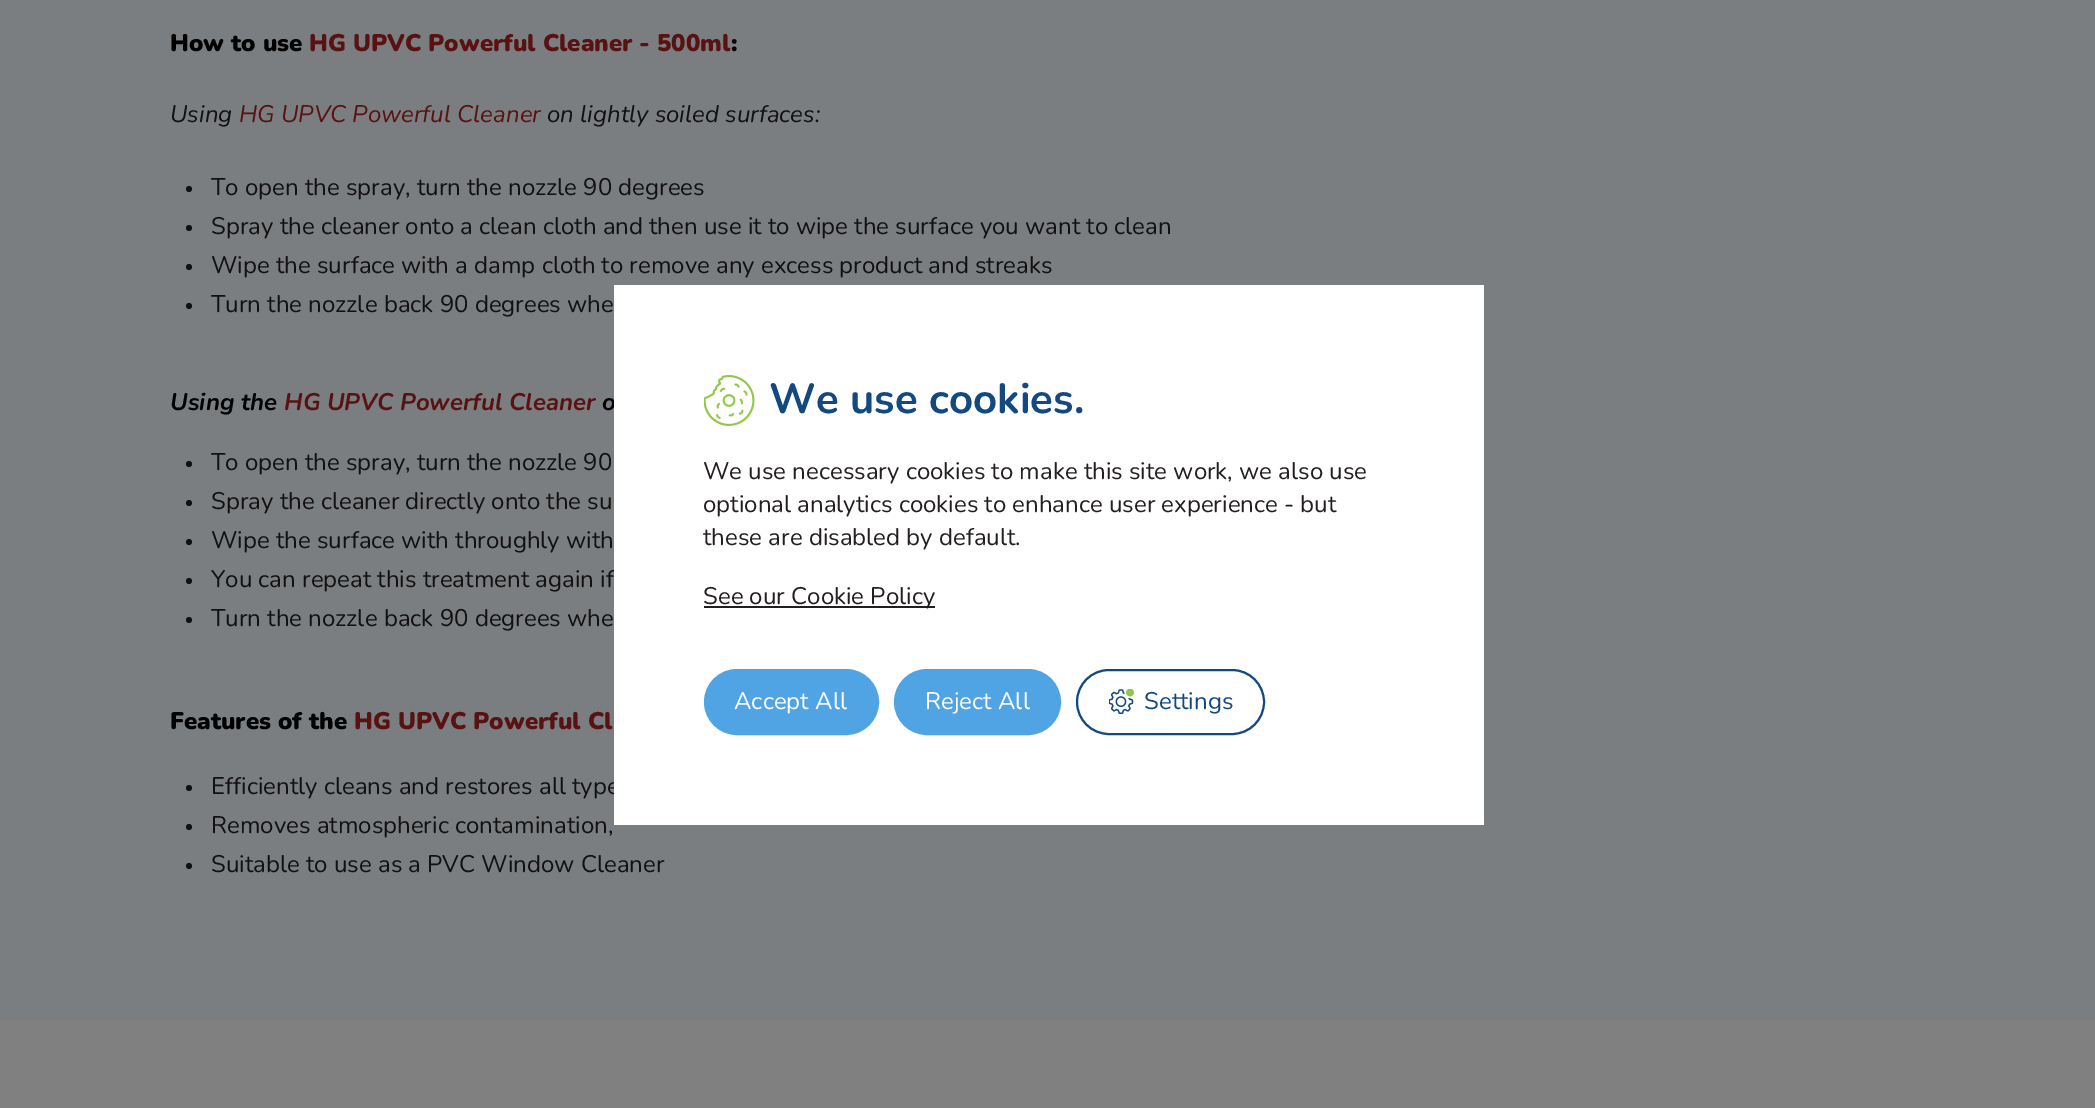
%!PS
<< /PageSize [2095 1108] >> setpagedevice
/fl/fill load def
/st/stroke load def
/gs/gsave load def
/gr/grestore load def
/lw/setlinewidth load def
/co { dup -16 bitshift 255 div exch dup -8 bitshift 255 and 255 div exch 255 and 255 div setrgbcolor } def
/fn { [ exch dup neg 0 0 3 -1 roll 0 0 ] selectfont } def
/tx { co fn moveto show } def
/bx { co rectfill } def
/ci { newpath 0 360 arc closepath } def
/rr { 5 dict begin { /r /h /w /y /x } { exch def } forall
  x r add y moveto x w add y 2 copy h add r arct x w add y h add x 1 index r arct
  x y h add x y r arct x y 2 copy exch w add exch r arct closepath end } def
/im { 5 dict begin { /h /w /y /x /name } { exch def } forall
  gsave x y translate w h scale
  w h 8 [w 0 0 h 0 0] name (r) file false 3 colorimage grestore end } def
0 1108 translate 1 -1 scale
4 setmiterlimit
0 0 2095 1108 16#808080 bx
0 0 2095 1020 16#7B7E80 bx
16#121010 co
189 189 3 ci fl
189 228 3 ci fl
189 267 3 ci fl
189 306 3 ci fl
189 464 3 ci fl
189 503 3 ci fl
189 542 3 ci fl
189 581 3 ci fl
189 620 3 ci fl
189 788 3 ci fl
189 827 3 ci fl
189 866 3 ci fl
(How to use) 170 51 /Nunito-Black 24 16#000000 tx
(HG UPVC Powerful Cleaner - 500ml) 309 51 /Nunito-Black 24 16#591111 tx
(:) 731 51 /Nunito-Black 24 16#000000 tx
(Using) 170 122 /Nunito-Italic 24 16#121010 tx
(HG UPVC Powerful Cleaner) 239 122 /Nunito-Italic 24 16#591111 tx
(on lightly soiled surfaces:) 547 122 /Nunito-Italic 24 16#121010 tx
(To open the spray, turn the nozzle 90 degrees) 211 195 /Nunito-ExtraLight 24 16#121010 tx
(Spray the cleaner onto a clean cloth and then use it to wipe the surface you want to clean) 211 234 /Nunito-ExtraLight 24 16#121010 tx
(Wipe the surface with a damp cloth to remove any excess product and streaks) 211 273 /Nunito-ExtraLight 24 16#121010 tx
(Turn the nozzle back 90 degrees whe) 211 312 /Nunito-ExtraLight 24 16#121010 tx
(Using the) 170 410 /Nunito-BoldItalic 24 16#000000 tx
(HG UPVC Powerful Cleaner) 284 410 /Nunito-BoldItalic 24 16#591111 tx
(o) 602 410 /Nunito-BoldItalic 24 16#000000 tx
(To open the spray, turn the nozzle 90) 211 470 /Nunito-ExtraLight 24 16#121010 tx
(Spray the cleaner directly onto the su) 211 509 /Nunito-ExtraLight 24 16#121010 tx
(Wipe the surface with throughly with) 211 548 /Nunito-ExtraLight 24 16#121010 tx
(You can repeat this treatment again if) 211 587 /Nunito-ExtraLight 24 16#121010 tx
(Turn the nozzle back 90 degrees whe) 211 626 /Nunito-ExtraLight 24 16#121010 tx
(Features of the) 170 729 /Nunito-Black 24 16#000000 tx
(HG UPVC Powerful Cl) 354 729 /Nunito-Black 24 16#591111 tx
(Efficiently cleans and restores all type) 211 794 /Nunito-ExtraLight 24 16#121010 tx
(Removes atmospheric contamination,) 211 833 /Nunito-ExtraLight 24 16#121010 tx
(Suitable to use as a PVC Window Cleaner) 211 872 /Nunito-ExtraLight 24 16#121010 tx
614 285 870 540 16#FFFFFF bx
(media/1.raw) 704 375 51 51 im
(We use cookies.) 769 413 /Nunito-Bold 42 16#134880 tx
(We use necessary cookies to make this site work, we also use) 703 479 /Nunito-ExtraLight 24 16#231F20 tx
(optional analytics cookies to enhance user experience - but) 703 512 /Nunito-ExtraLight 24 16#231F20 tx
(these are disabled by default.) 703 545 /Nunito-ExtraLight 24 16#231F20 tx
704 606 231 2 16#231F20 bx
(See our Cookie Policy) 703 604 /Nunito-ExtraLight 24 16#231F20 tx
16#50A4E3 co
705 670 173 64 32 rr gs fl gr
2 lw
st
(Accept All) 734 709 /Nunito-ExtraLight 24 16#FFFFFF tx
16#50A4E3 co
895 670 165 64 32 rr gs fl gr
st
(Reject All) 925 709 /Nunito-ExtraLight 24 16#FFFFFF tx
16#134880 co
1077 670 187 64 32 rr st
(media/2.raw) 1109 689 25 25 im
(Settings) 1144 709 /Nunito-ExtraLight 24 16#134880 tx
showpage
